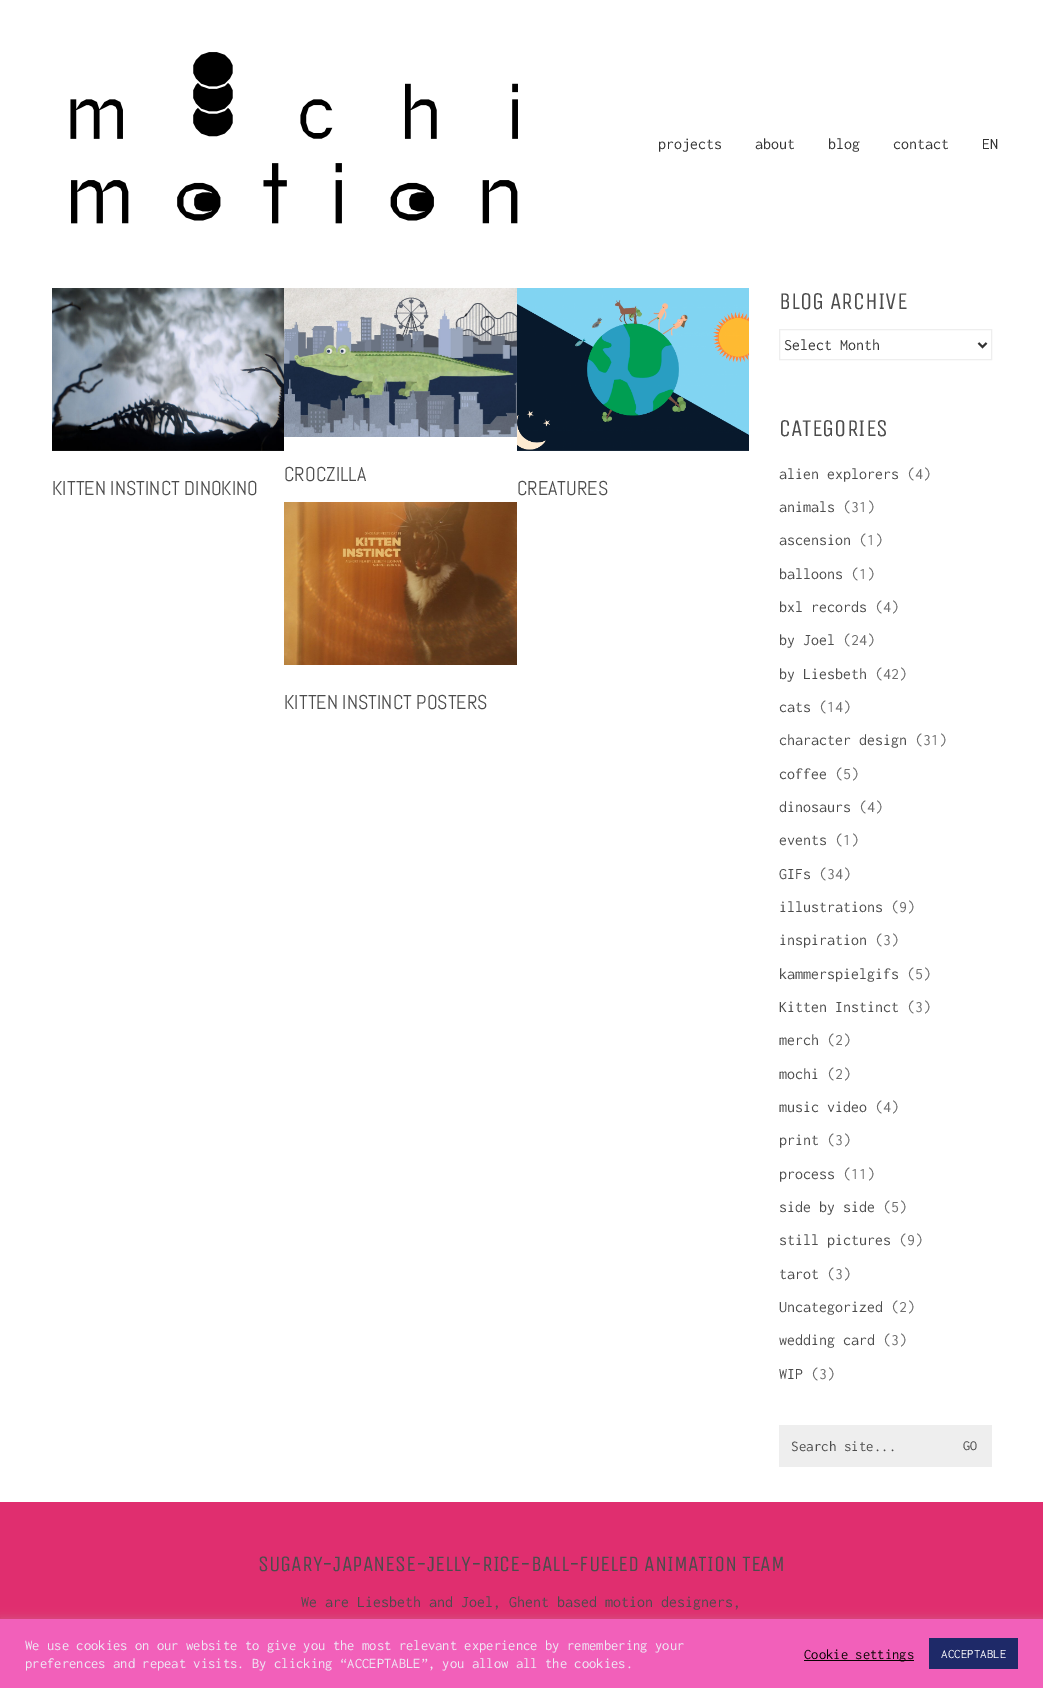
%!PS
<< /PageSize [1043 1688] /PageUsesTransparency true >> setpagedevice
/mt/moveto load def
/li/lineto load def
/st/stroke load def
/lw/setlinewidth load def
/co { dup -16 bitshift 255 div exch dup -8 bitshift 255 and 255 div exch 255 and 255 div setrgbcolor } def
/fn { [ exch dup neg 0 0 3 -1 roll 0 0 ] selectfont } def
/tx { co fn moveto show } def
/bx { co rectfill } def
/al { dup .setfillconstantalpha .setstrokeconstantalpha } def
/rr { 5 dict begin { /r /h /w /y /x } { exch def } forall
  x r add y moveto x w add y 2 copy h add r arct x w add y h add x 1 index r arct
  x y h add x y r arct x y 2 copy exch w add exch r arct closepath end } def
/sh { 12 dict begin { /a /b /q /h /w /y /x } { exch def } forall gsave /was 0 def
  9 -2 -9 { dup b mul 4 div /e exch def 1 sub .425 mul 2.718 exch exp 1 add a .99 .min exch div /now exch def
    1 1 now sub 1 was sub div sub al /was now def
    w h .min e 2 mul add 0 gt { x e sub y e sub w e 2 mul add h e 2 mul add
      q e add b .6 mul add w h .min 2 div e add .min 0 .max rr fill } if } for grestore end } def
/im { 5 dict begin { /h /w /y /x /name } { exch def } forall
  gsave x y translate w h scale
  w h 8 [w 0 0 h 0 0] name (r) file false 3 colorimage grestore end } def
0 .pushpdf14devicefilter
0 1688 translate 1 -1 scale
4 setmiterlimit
0 0 1043 1688 16#FFFFFF bx
(media/1.raw) 70 52 448 172 im
(media/2.raw) 284 288 233 149 im
(media/3.raw) 52 288 232 163 im
(media/4.raw) 517 288 232 163 im
(media/5.raw) 284 502 233 163 im
16#EEEEEE co
779.5 329.5 212 30 rectstroke
16#333333 co
2 lw
978.5 343 mt 982.5 347 li 986.5 343 li st
779 1425 213 42 16#EEEEEE bx
0 1502 1043 117 16#E02E6F bx
16#ACABAB co
0 1618 1043 69 0 5 .3 sh
0 1619 1043 69 16#F260BA bx
804 1660 110 1 16#0A0303 bx
929 1638 89 31 16#1E2968 bx
(projects) 658 149 /Inconsolata-Regular 16 16#333333 tx
(about) 755 149 /Inconsolata-Regular 16 16#333333 tx
(blog) 828 149 /Inconsolata-Regular 16 16#333333 tx
(contact) 893 149 /Inconsolata-Regular 16 16#333333 tx
(EN) 982 149 /Inconsolata-Regular 16 16#333333 tx
(CROCZILLA) 284 481 /Abel-Regular 20 16#4C4C4C tx
(KITTEN INSTINCT DINOKINO) 52 495 /Abel-Regular 20 16#4C4C4C tx
(CREATURES) 517 495 /Abel-Regular 20 16#4C4C4C tx
(KITTEN INSTINCT POSTERS) 284 709 /Abel-Regular 20 16#4C4C4C tx
(BLOG ARCHIVE) 779 309 /UnicaOne-Regular 24 16#4C4C4C tx
(Select Month) 784 350 /Inconsolata-Regular 16 16#333333 tx
(CATEGORIES) 779 436 /UnicaOne-Regular 24 16#4C4C4C tx
(alien explorers) 779 479 /Inconsolata-Regular 16 16#4C4C4C tx
(\(4\)) 907 479 /Inconsolata-Regular 16 16#6D6D6D tx
(animals) 779 512 /Inconsolata-Regular 16 16#4C4C4C tx
(\(31\)) 843 512 /Inconsolata-Regular 16 16#6D6D6D tx
(ascension) 779 545 /Inconsolata-Regular 16 16#4C4C4C tx
(\(1\)) 859 545 /Inconsolata-Regular 16 16#6D6D6D tx
(balloons) 779 579 /Inconsolata-Regular 16 16#4C4C4C tx
(\(1\)) 851 579 /Inconsolata-Regular 16 16#6D6D6D tx
(bxl records) 779 612 /Inconsolata-Regular 16 16#4C4C4C tx
(\(4\)) 875 612 /Inconsolata-Regular 16 16#6D6D6D tx
(by Joel) 779 645 /Inconsolata-Regular 16 16#4C4C4C tx
(\(24\)) 843 645 /Inconsolata-Regular 16 16#6D6D6D tx
(by Liesbeth) 779 679 /Inconsolata-Regular 16 16#4C4C4C tx
(\(42\)) 875 679 /Inconsolata-Regular 16 16#6D6D6D tx
(cats) 779 712 /Inconsolata-Regular 16 16#4C4C4C tx
(\(14\)) 819 712 /Inconsolata-Regular 16 16#6D6D6D tx
(character design) 779 745 /Inconsolata-Regular 16 16#4C4C4C tx
(\(31\)) 915 745 /Inconsolata-Regular 16 16#6D6D6D tx
(coffee) 779 779 /Inconsolata-Regular 16 16#4C4C4C tx
(\(5\)) 835 779 /Inconsolata-Regular 16 16#6D6D6D tx
(dinosaurs) 779 812 /Inconsolata-Regular 16 16#4C4C4C tx
(\(4\)) 859 812 /Inconsolata-Regular 16 16#6D6D6D tx
(events) 779 845 /Inconsolata-Regular 16 16#4C4C4C tx
(\(1\)) 835 845 /Inconsolata-Regular 16 16#6D6D6D tx
(GIFs) 779 879 /Inconsolata-Regular 16 16#4C4C4C tx
(\(34\)) 819 879 /Inconsolata-Regular 16 16#6D6D6D tx
(illustrations) 779 912 /Inconsolata-Regular 16 16#4C4C4C tx
(\(9\)) 891 912 /Inconsolata-Regular 16 16#6D6D6D tx
(inspiration) 779 945 /Inconsolata-Regular 16 16#4C4C4C tx
(\(3\)) 875 945 /Inconsolata-Regular 16 16#6D6D6D tx
(kammerspielgifs) 779 979 /Inconsolata-Regular 16 16#4C4C4C tx
(\(5\)) 907 979 /Inconsolata-Regular 16 16#6D6D6D tx
(Kitten Instinct) 779 1012 /Inconsolata-Regular 16 16#4C4C4C tx
(\(3\)) 907 1012 /Inconsolata-Regular 16 16#6D6D6D tx
(merch) 779 1045 /Inconsolata-Regular 16 16#4C4C4C tx
(\(2\)) 827 1045 /Inconsolata-Regular 16 16#6D6D6D tx
(mochi) 779 1079 /Inconsolata-Regular 16 16#4C4C4C tx
(\(2\)) 827 1079 /Inconsolata-Regular 16 16#6D6D6D tx
(music video) 779 1112 /Inconsolata-Regular 16 16#4C4C4C tx
(\(4\)) 875 1112 /Inconsolata-Regular 16 16#6D6D6D tx
(print) 779 1145 /Inconsolata-Regular 16 16#4C4C4C tx
(\(3\)) 827 1145 /Inconsolata-Regular 16 16#6D6D6D tx
(process) 779 1179 /Inconsolata-Regular 16 16#4C4C4C tx
(\(11\)) 843 1179 /Inconsolata-Regular 16 16#6D6D6D tx
(side by side) 779 1212 /Inconsolata-Regular 16 16#4C4C4C tx
(\(5\)) 883 1212 /Inconsolata-Regular 16 16#6D6D6D tx
(still pictures) 779 1245 /Inconsolata-Regular 16 16#4C4C4C tx
(\(9\)) 899 1245 /Inconsolata-Regular 16 16#6D6D6D tx
(tarot) 779 1279 /Inconsolata-Regular 16 16#4C4C4C tx
(\(3\)) 827 1279 /Inconsolata-Regular 16 16#6D6D6D tx
(Uncategorized) 779 1312 /Inconsolata-Regular 16 16#4C4C4C tx
(\(2\)) 891 1312 /Inconsolata-Regular 16 16#6D6D6D tx
(wedding card) 779 1345 /Inconsolata-Regular 16 16#4C4C4C tx
(\(3\)) 883 1345 /Inconsolata-Regular 16 16#6D6D6D tx
(WIP) 779 1379 /Inconsolata-Regular 16 16#4C4C4C tx
(\(3\)) 811 1379 /Inconsolata-Regular 16 16#6D6D6D tx
(Search site...) 791 1451 /Inconsolata-Regular 15 16#4C4C4C tx
(GO) 963 1450 /Inconsolata-Regular 14 16#4C4C4C tx
(SUGARY-JAPANESE-JELLY-RICE-BALL-FUELED ANIMATION TEAM) 258 1571 /UnicaOne-Regular 22 16#4C4C4C tx
(We are Liesbeth and Joel, Ghent based motion designers,) 301 1607 /Inconsolata-Regular 16 16#4C4C4C tx
(We use cookies on our website to give you the most relevant experience by remembering your) 25 1650 /Inconsolata-Regular 14.65 16#EEECF7 tx
(preferences and repeat visits. By clicking “ACCEPTABLE”, you allow all the cookies.) 25 1668 /Inconsolata-Regular 14.65 16#EEECF7 tx
(Cookie settings) 804 1659 /Inconsolata-Regular 14.65 16#0A0303 tx
(ACCEPTABLE) 941 1658 /Inconsolata-Regular 13 16#FFFFFF tx
.poppdf14devicefilter showpage
